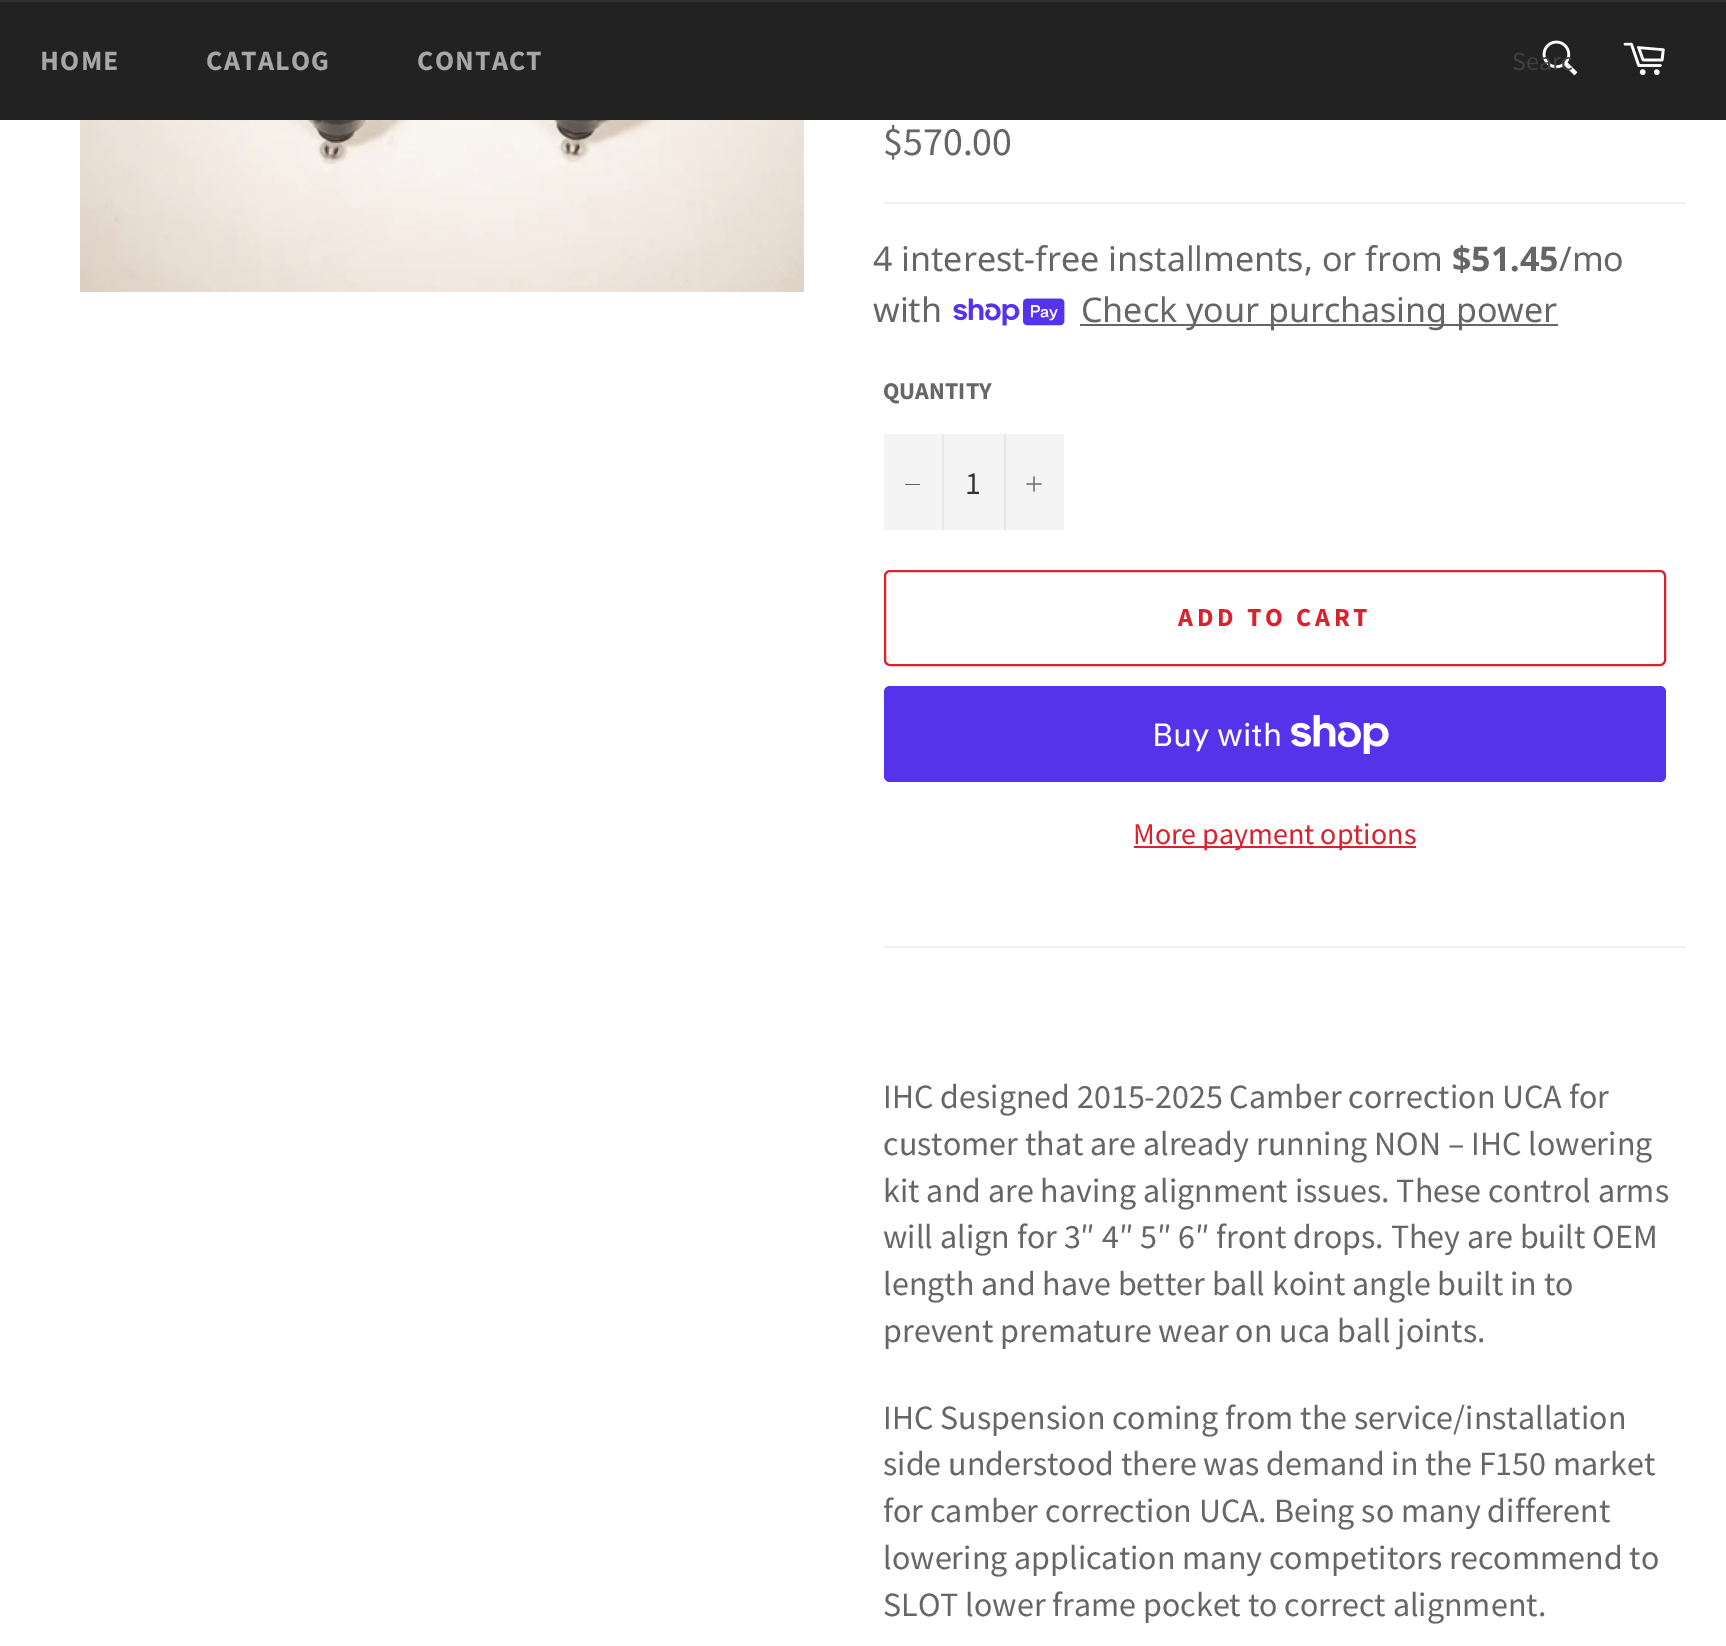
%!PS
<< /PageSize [1726 1646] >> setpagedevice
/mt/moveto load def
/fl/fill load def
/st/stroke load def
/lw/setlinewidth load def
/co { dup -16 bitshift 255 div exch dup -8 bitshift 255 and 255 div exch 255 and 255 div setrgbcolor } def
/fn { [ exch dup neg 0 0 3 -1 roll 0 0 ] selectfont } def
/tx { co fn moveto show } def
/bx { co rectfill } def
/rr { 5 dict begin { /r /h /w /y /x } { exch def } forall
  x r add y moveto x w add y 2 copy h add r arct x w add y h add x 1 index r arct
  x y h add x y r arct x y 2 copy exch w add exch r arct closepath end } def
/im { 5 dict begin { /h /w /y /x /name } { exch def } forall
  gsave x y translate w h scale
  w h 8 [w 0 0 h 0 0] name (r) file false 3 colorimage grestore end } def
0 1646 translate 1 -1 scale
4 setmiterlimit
0 0 1726 1646 16#FFFFFF bx
0 2 1726 118 16#222222 bx
0 0 1726 2 16#2F2F2F bx
(media/1.raw) 1542 40 36 36 im
(media/2.raw) 1623 42 42 33 im
(media/3.raw) 80 120 724 172 im
884 202 802 2 16#F0F0F0 bx
(media/4.raw) 953 298 112 28 im
1080 324 478 2 16#666666 bx
884 434 180 96 16#F4F4F4 bx
942 434 2 96 16#E7E7E7 bx
905 484 15 1 16#666666 bx
1004 434 2 96 16#E7E7E7 bx
(media/5.raw) 1026 476 16 16 im
16#D8232F co
2 lw
885 571 780 94 5 rr st
16#5433EB co
884 686 782 96 6 rr fl
(media/6.raw) 1291 715 98 39 im
1134 846 282 2 16#D8232F bx
884 946 802 2 16#F0F0F0 bx
/SourceSansPro-Bold 28 fn
16#A7A7A7 co
40 70 mt 1.25 0 (HOME) ashow
206 70 mt 1.25 0 (CATALOG) ashow
417 70 mt 1.25 0 (CONTACT) ashow
(Searc) 1512 70 /SourceSansPro-Regular 26 16#3F3F3F tx
($570.00) 883 155 /SourceSansPro-Regular 40 16#666666 tx
(4 interest-free installments, or from) 873 271 /NotoSans-Regular 34 16#666666 tx
($51.45) 1452 271 /NotoSans-Bold 34 16#666666 tx
(/mo) 1559 271 /NotoSans-Regular 34 16#666666 tx
(with) 873 322 /NotoSans-Regular 34 16#666666 tx
(Check your purchasing power) 1081 322 /NotoSans-Regular 34 16#666666 tx
(QUANTITY) 883 399 /SourceSansPro-Bold 24 16#666666 tx
(1) 965 494 /SourceSansPro-Regular 32 16#333333 tx
/SourceSansPro-Bold 26 fn
16#D8232F co
1178 626 mt 3.9 0 (ADD TO CART) ashow
(Buy with) 1152 746 /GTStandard-Regular 32 16#FFFFFF tx
(More payment options) 1133 844 /SourceSansPro-Regular 30 16#D8232F tx
(IHC designed 2015-2025 Camber correction UCA for) 883 1108 /SourceSansPro-Regular 34 16#666666 tx
(customer that are already running NON – IHC lowering) 883 1155 /SourceSansPro-Regular 34 16#666666 tx
(kit and are having alignment issues. These control arms) 883 1202 /SourceSansPro-Regular 34 16#666666 tx
(will align for 3″ 4″ 5″ 6″ front drops. They are built OEM) 883 1248 /SourceSansPro-Regular 34 16#666666 tx
(length and have better ball koint angle built in to) 883 1295 /SourceSansPro-Regular 34 16#666666 tx
(prevent premature wear on uca ball joints.) 883 1342 /SourceSansPro-Regular 34 16#666666 tx
(IHC Suspension coming from the service/installation) 883 1429 /SourceSansPro-Regular 34 16#666666 tx
(side understood there was demand in the F150 market) 883 1475 /SourceSansPro-Regular 34 16#666666 tx
(for camber correction UCA. Being so many different) 883 1522 /SourceSansPro-Regular 34 16#666666 tx
(lowering application many competitors recommend to) 883 1569 /SourceSansPro-Regular 34 16#666666 tx
(SLOT lower frame pocket to correct alignment.) 883 1616 /SourceSansPro-Regular 34 16#666666 tx
showpage
